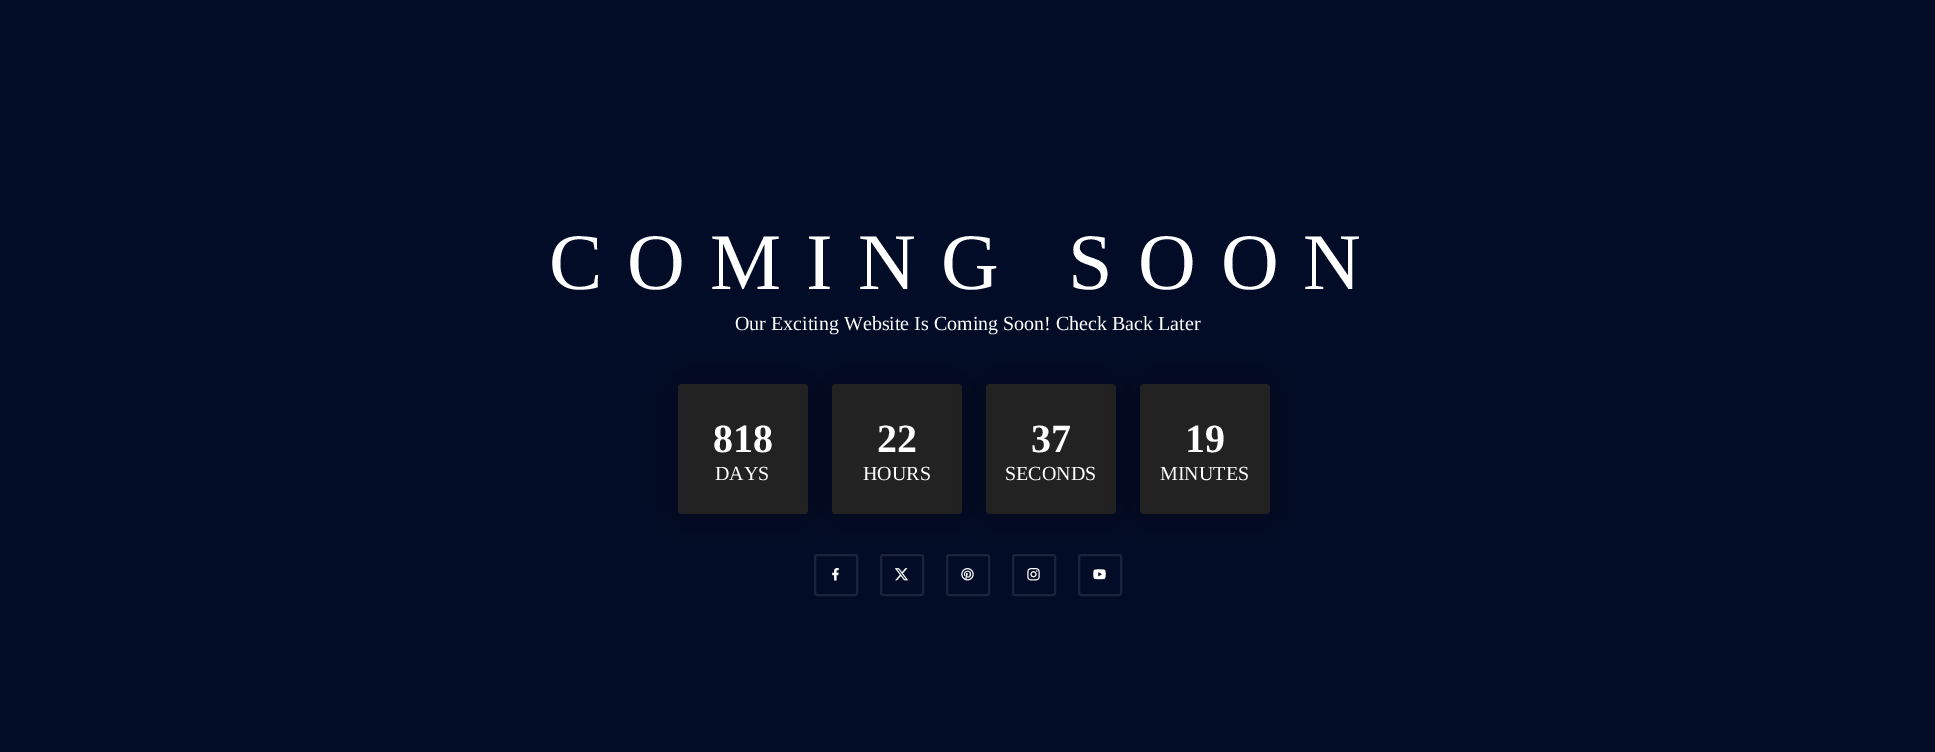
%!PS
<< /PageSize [1935 752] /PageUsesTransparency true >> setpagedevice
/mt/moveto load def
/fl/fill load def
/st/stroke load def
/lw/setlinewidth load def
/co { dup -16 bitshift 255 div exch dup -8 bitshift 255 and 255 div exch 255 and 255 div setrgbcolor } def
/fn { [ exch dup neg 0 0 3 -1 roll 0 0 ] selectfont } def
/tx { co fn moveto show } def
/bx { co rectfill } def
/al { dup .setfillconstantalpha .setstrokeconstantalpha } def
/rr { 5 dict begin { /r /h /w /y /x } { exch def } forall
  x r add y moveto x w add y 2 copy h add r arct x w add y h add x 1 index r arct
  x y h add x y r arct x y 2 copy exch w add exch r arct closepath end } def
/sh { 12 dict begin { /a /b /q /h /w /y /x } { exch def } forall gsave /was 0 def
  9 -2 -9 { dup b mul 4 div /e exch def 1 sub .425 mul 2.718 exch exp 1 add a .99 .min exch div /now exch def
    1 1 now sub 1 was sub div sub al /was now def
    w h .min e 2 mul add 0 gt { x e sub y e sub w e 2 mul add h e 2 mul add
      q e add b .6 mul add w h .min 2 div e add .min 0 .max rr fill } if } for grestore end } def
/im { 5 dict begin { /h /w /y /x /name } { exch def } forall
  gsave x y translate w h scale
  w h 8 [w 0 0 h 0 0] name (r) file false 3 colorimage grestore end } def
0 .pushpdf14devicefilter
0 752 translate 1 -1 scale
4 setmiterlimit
0 0 1935 752 16#030C26 bx
16#1C243C co
2 lw
815 555 42 40 2 rr st
(media/1.raw) 832 568 7 13 im
881 555 42 40 2 rr st
16#000000 co
678 384 130 130 4 26 .3 sh
16#222222 co
678 384 130 130 4 rr fl
(media/2.raw) 894 568 15 13 im
16#1C243C co
947 555 42 40 2 rr st
(media/3.raw) 961 568 13 13 im
1013 555 42 40 2 rr st
(media/4.raw) 1027 568 13 13 im
16#000000 co
832 384 130 130 4 26 .3 sh
16#222222 co
832 384 130 130 4 rr fl
16#1C243C co
1079 555 42 40 2 rr st
(media/5.raw) 1093 569 13 11 im
16#000000 co
986 384 130 130 4 26 .3 sh
16#222222 co
986 384 130 130 4 rr fl
16#000000 co
1140 384 130 130 4 26 .3 sh
16#222222 co
1140 384 130 130 4 rr fl
/LiberationSerif-Regular 80 fn
16#FFFFFF co
549 289 mt 25 0 (COMING SOON) ashow
(Our Exciting Website Is Coming Soon! Check Back Later) 735 330 /LiberationSerif-Regular 20 16#FFFFFF tx
(818) 713 452 /LiberationSerif-Bold 40 16#FFFFFF tx
(DAYS) 715 480 /LiberationSerif-Regular 20 16#FFFFFF tx
(22) 877 452 /LiberationSerif-Bold 40 16#FFFFFF tx
(HOURS) 863 480 /LiberationSerif-Regular 20 16#FFFFFF tx
(37) 1031 452 /LiberationSerif-Bold 40 16#FFFFFF tx
(SECONDS) 1005 480 /LiberationSerif-Regular 20 16#FFFFFF tx
(19) 1185 452 /LiberationSerif-Bold 40 16#FFFFFF tx
(MINUTES) 1160 480 /LiberationSerif-Regular 20 16#FFFFFF tx
.poppdf14devicefilter showpage
